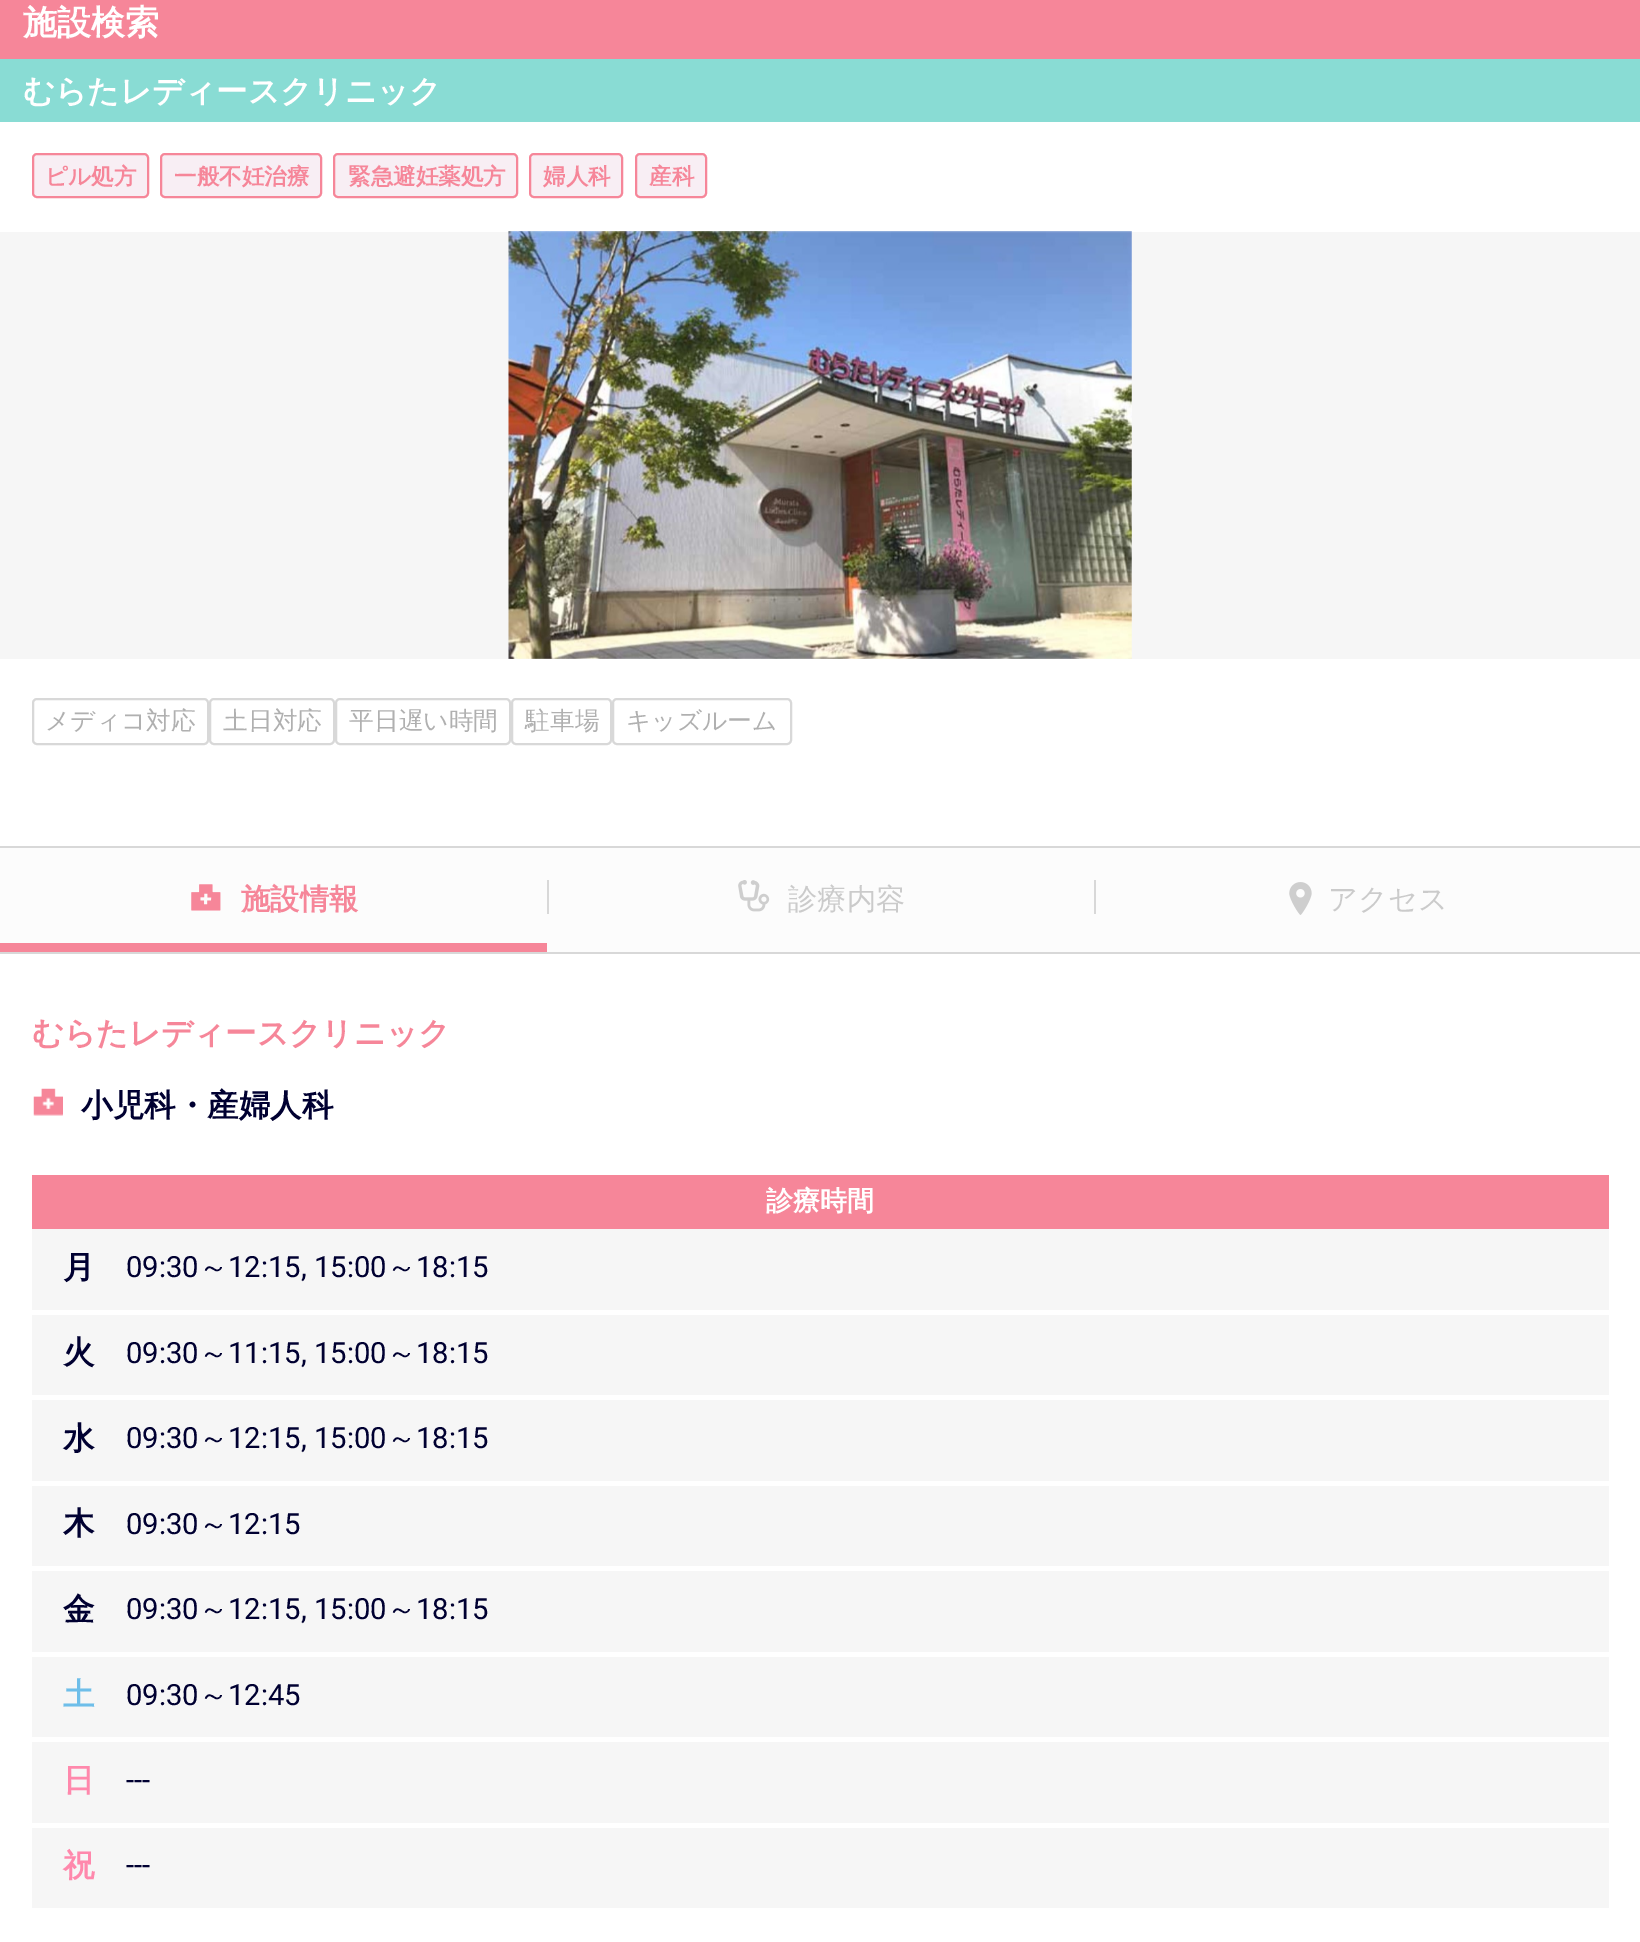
%!PS
<< /PageSize [1640 1942] >> setpagedevice
/fl/fill load def
/st/stroke load def
/gs/gsave load def
/gr/grestore load def
/lw/setlinewidth load def
/co { dup -16 bitshift 255 div exch dup -8 bitshift 255 and 255 div exch 255 and 255 div setrgbcolor } def
/fn { [ exch dup neg 0 0 3 -1 roll 0 0 ] selectfont } def
/tx { co fn moveto show } def
/bx { co rectfill } def
/rr { 5 dict begin { /r /h /w /y /x } { exch def } forall
  x r add y moveto x w add y 2 copy h add r arct x w add y h add x 1 index r arct
  x y h add x y r arct x y 2 copy exch w add exch r arct closepath end } def
/im { 5 dict begin { /h /w /y /x /name } { exch def } forall
  gsave x y translate w h scale
  w h 8 [w 0 0 h 0 0] name (r) file false 3 colorimage grestore end } def
0 1942 translate 1 -1 scale
4 setmiterlimit
0 0 1640 1942 16#FFFFFF bx
0 0 1640 59 16#F68699 bx
0 59 1640 63 16#89DCD4 bx
16#F8EEF4 co
33 154 115 43 4 rr gs fl gr
16#F68699 co
2 lw
st
16#F8EEF4 co
161 154 160 43 4 rr gs fl gr
16#F68699 co
st
16#F8EEF4 co
334 154 183 43 4 rr gs fl gr
16#F68699 co
st
16#F8EEF4 co
530 154 92 43 4 rr gs fl gr
16#F68699 co
st
16#F8EEF4 co
636 154 70 43 4 rr gs fl gr
16#F68699 co
st
0 232 1640 427 16#F6F6F6 bx
(media/1.raw) 508 231 624 428 im
16#D8D8D8 co
33 699 175 45 4 rr st
210 699 124 45 4 rr st
336 699 174 45 4 rr st
512 699 99 45 4 rr st
613 699 178 45 4 rr st
0 848 1640 104 16#FCFCFC bx
0 846 1640 2 16#D8D8D8 bx
0 952 1640 2 16#D8D8D8 bx
(media/2.raw) 191 884 30 27 im
0 943 547 9 16#F68699 bx
547 880 2 34 16#D8D8D8 bx
(media/3.raw) 738 880 32 32 im
1094 880 2 34 16#D8D8D8 bx
(media/4.raw) 1289 882 23 33 im
(media/5.raw) 33 1088 30 28 im
32 1175 1577 54 16#F68699 bx
32 1229 1577 81 16#F6F6F6 bx
32 1315 1577 80 16#F6F6F6 bx
32 1400 1577 81 16#F6F6F6 bx
32 1486 1577 80 16#F6F6F6 bx
32 1571 1577 81 16#F6F6F6 bx
32 1657 1577 80 16#F6F6F6 bx
32 1742 1577 81 16#F6F6F6 bx
32 1828 1577 80 16#F6F6F6 bx
(施設検索) 23 34 /WenQuanYiZenHei-Bold 34 16#FFFFFF tx
(むらたレディースクリニック) 23 102 /WenQuanYiZenHei-Bold 31.5 16#FFFFFF tx
(ピル処方) 45 184 /WenQuanYiZenHei-Bold 22.5 16#F68699 tx
(一般不妊治療) 174 184 /WenQuanYiZenHei-Bold 22.5 16#F68699 tx
(緊急避妊薬処方) 348 184 /WenQuanYiZenHei-Bold 22.5 16#F68699 tx
(婦人科) 543 184 /WenQuanYiZenHei-Bold 22.5 16#F68699 tx
(産科) 649 184 /WenQuanYiZenHei-Bold 22.5 16#F68699 tx
(メディコ対応) 45 729 /WenQuanYiZenHei-Medium 24.75 16#B0B0B0 tx
(土日対応) 223 729 /WenQuanYiZenHei-Medium 24.75 16#B0B0B0 tx
(平日遅い時間) 349 729 /WenQuanYiZenHei-Medium 24.75 16#B0B0B0 tx
(駐車場) 525 729 /WenQuanYiZenHei-Medium 24.75 16#B0B0B0 tx
(キッズルーム) 626 729 /WenQuanYiZenHei-Medium 24.75 16#B0B0B0 tx
(施設情報) 241 909 /WenQuanYiZenHei-Bold 29.25 16#F68699 tx
(診療内容) 788 909 /WenQuanYiZenHei-Medium 29.25 16#CBCBCB tx
(アクセス) 1328 909 /WenQuanYiZenHei-Medium 29.25 16#CBCBCB tx
(むらたレディースクリニック) 32 1044 /WenQuanYiZenHei-Bold 31.5 16#F68699 tx
(小児科・産婦人科) 81 1116 /WenQuanYiZenHei-Bold 31.5 16#000031 tx
(診療時間) 766 1210 /WenQuanYiZenHei-Bold 27 16#FFFFFF tx
(月) 63 1278 /WenQuanYiZenHei-Bold 31.5 16#000031 tx
(09:30) 126 1277 /Roboto-Regular 29.25 16#000031 tx
(～) 199 1277 /WenQuanYiZenHei-Medium 29.25 16#000031 tx
(12:15, 15:00) 228 1277 /Roboto-Regular 29.25 16#000031 tx
(～) 387 1277 /WenQuanYiZenHei-Medium 29.25 16#000031 tx
(18:15) 416 1277 /Roboto-Regular 29.25 16#000031 tx
(火) 63 1363 /WenQuanYiZenHei-Bold 31.5 16#000031 tx
(09:30) 126 1363 /Roboto-Regular 29.25 16#000031 tx
(～) 199 1363 /WenQuanYiZenHei-Medium 29.25 16#000031 tx
(11:15, 15:00) 228 1363 /Roboto-Regular 29.25 16#000031 tx
(～) 387 1363 /WenQuanYiZenHei-Medium 29.25 16#000031 tx
(18:15) 416 1363 /Roboto-Regular 29.25 16#000031 tx
(水) 63 1449 /WenQuanYiZenHei-Bold 31.5 16#000031 tx
(09:30) 126 1448 /Roboto-Regular 29.25 16#000031 tx
(～) 199 1448 /WenQuanYiZenHei-Medium 29.25 16#000031 tx
(12:15, 15:00) 228 1448 /Roboto-Regular 29.25 16#000031 tx
(～) 387 1448 /WenQuanYiZenHei-Medium 29.25 16#000031 tx
(18:15) 416 1448 /Roboto-Regular 29.25 16#000031 tx
(木) 63 1534 /WenQuanYiZenHei-Bold 31.5 16#000031 tx
(09:30) 126 1534 /Roboto-Regular 29.25 16#000031 tx
(～) 199 1534 /WenQuanYiZenHei-Medium 29.25 16#000031 tx
(12:15) 228 1534 /Roboto-Regular 29.25 16#000031 tx
(金) 63 1620 /WenQuanYiZenHei-Bold 31.5 16#000031 tx
(09:30) 126 1619 /Roboto-Regular 29.25 16#000031 tx
(～) 199 1619 /WenQuanYiZenHei-Medium 29.25 16#000031 tx
(12:15, 15:00) 228 1619 /Roboto-Regular 29.25 16#000031 tx
(～) 387 1619 /WenQuanYiZenHei-Medium 29.25 16#000031 tx
(18:15) 416 1619 /Roboto-Regular 29.25 16#000031 tx
(土) 63 1705 /WenQuanYiZenHei-Bold 31.5 16#6EBEE9 tx
(09:30) 126 1705 /Roboto-Regular 29.25 16#000031 tx
(～) 199 1705 /WenQuanYiZenHei-Medium 29.25 16#000031 tx
(12:45) 228 1705 /Roboto-Regular 29.25 16#000031 tx
(日) 63 1791 /WenQuanYiZenHei-Bold 31.5 16#FF88AC tx
(---) 126 1790 /Roboto-Regular 29.25 16#000031 tx
(祝) 63 1876 /WenQuanYiZenHei-Bold 31.5 16#FF88AC tx
(---) 126 1875 /Roboto-Regular 29.25 16#000031 tx
showpage
